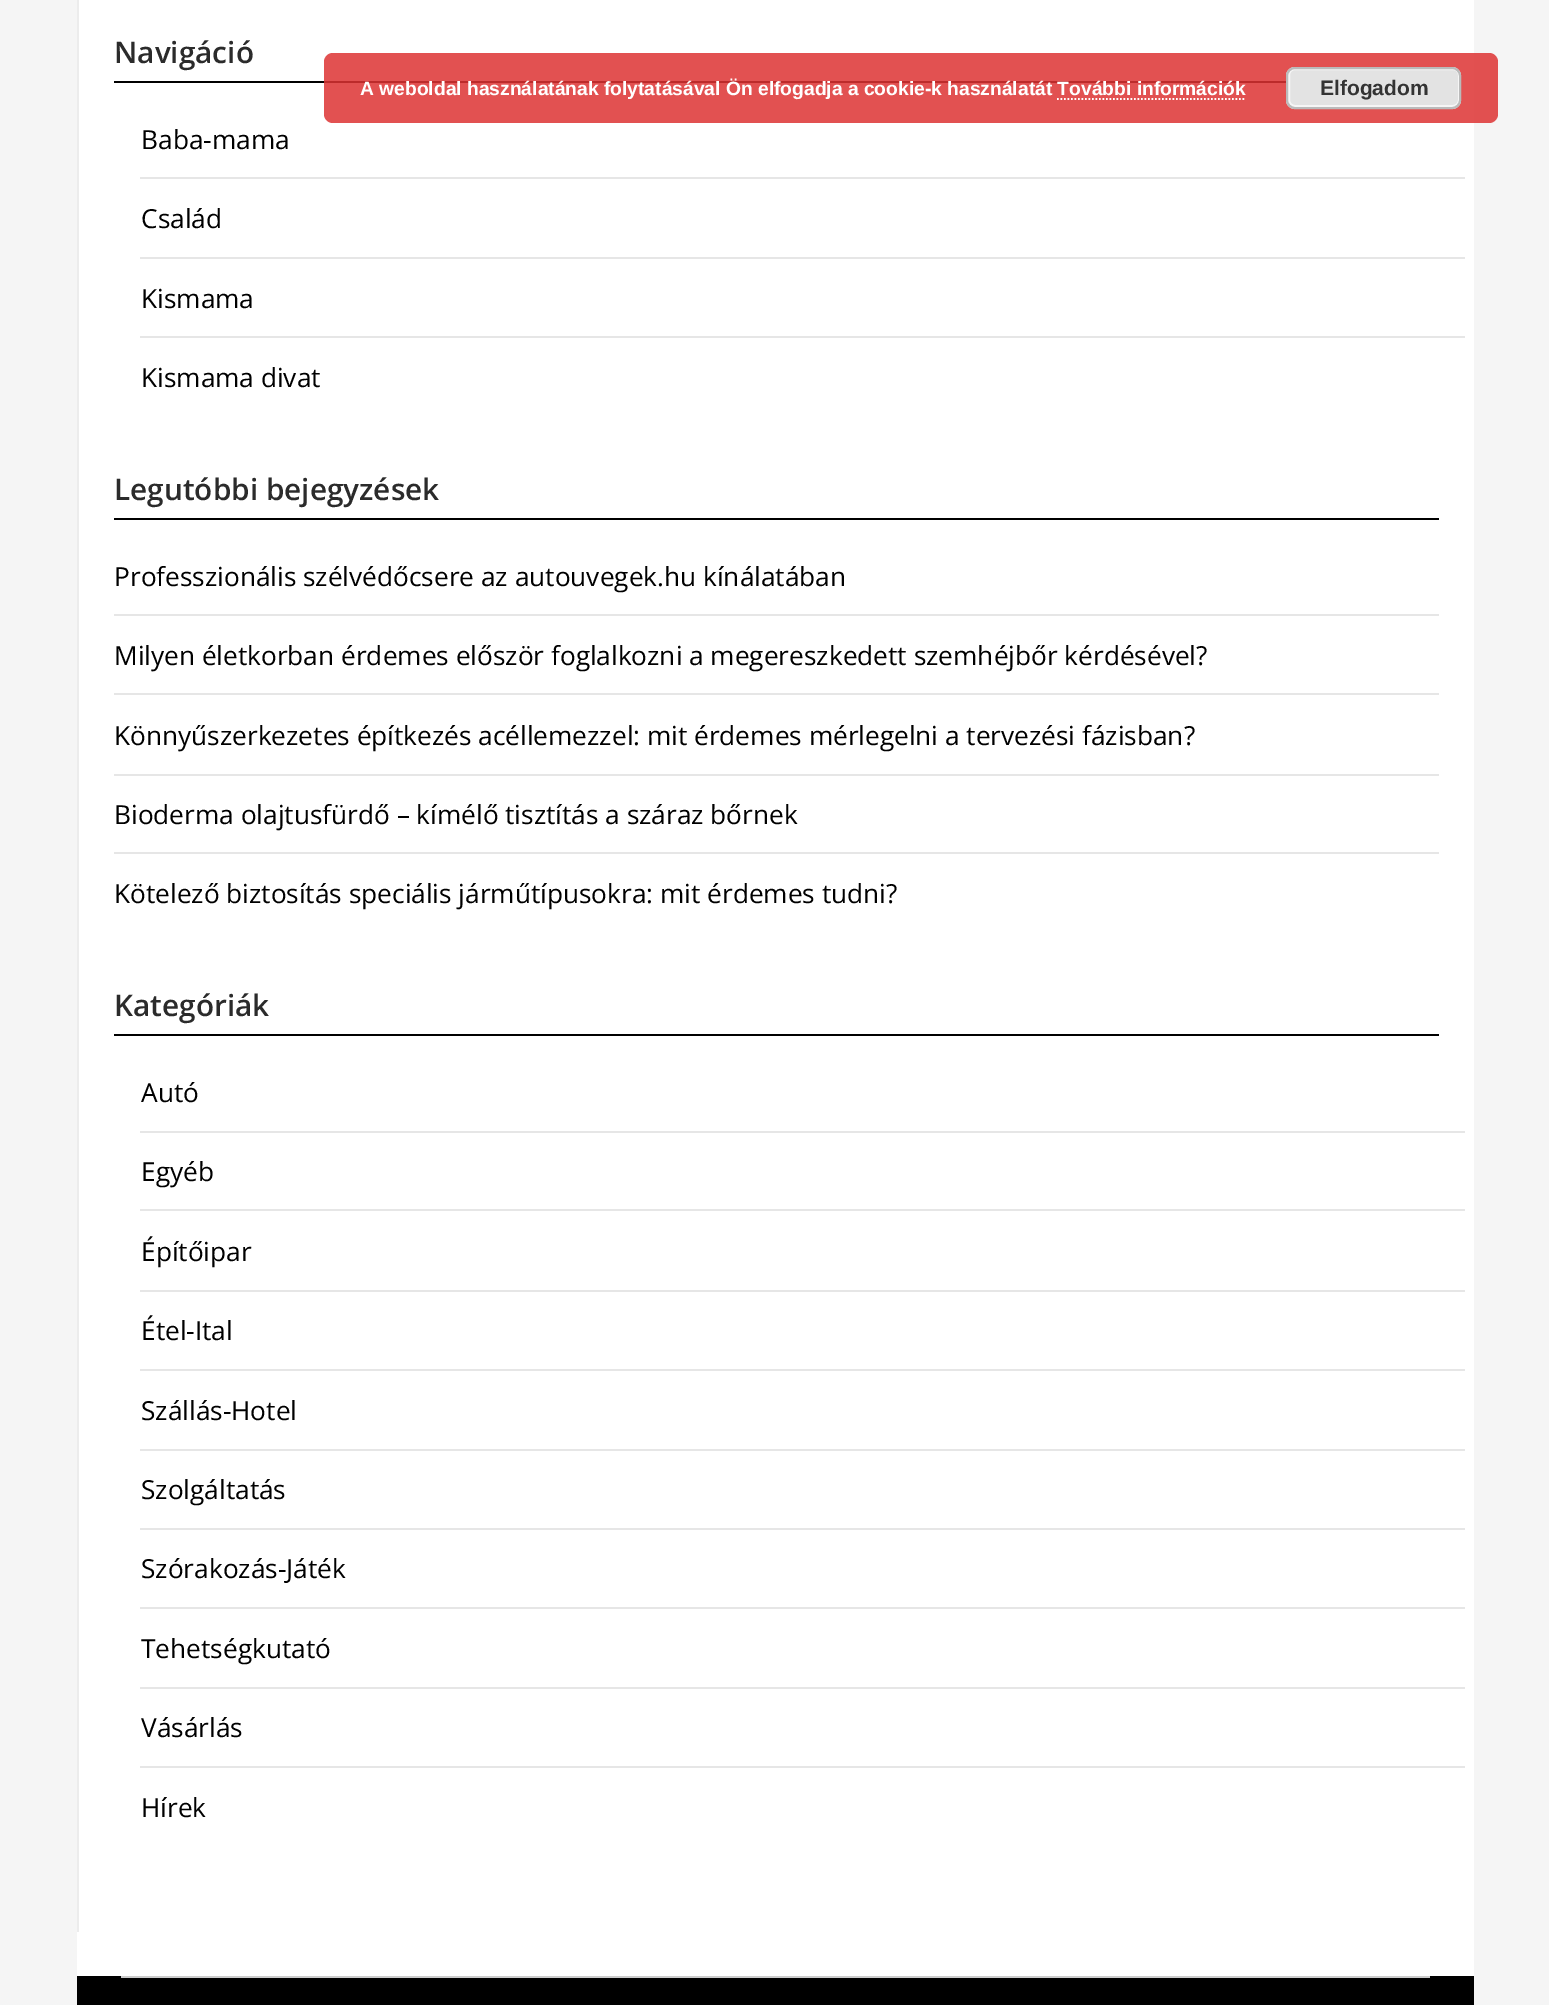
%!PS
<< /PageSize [1549 2005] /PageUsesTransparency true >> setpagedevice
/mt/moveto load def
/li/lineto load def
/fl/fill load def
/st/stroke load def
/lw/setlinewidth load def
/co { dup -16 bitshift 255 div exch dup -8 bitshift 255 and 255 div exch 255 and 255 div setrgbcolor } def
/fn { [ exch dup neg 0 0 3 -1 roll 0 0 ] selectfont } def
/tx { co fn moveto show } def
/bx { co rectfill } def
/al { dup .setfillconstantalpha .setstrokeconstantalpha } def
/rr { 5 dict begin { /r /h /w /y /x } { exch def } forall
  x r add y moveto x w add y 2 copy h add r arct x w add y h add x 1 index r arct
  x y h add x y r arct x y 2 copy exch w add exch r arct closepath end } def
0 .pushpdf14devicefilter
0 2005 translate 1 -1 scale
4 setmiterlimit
0 0 1549 2005 16#F5F5F5 bx
77 0 1397 1976 16#FFFFFF bx
77 0 2 1932 16#ECECEC bx
114 81 1172 2 16#000000 bx
140 177 1325 2 16#E6E6E6 bx
140 257 1325 2 16#E6E6E6 bx
140 336 1325 2 16#E6E6E6 bx
114 518 1325 2 16#000000 bx
114 614 1325 2 16#E6E6E6 bx
114 693 1325 2 16#E6E6E6 bx
114 774 1325 2 16#E6E6E6 bx
114 852 1325 2 16#E6E6E6 bx
114 1034 1325 2 16#000000 bx
140 1131 1325 2 16#E6E6E6 bx
140 1209 1325 2 16#E6E6E6 bx
140 1290 1325 2 16#E6E6E6 bx
140 1369 1325 2 16#E6E6E6 bx
140 1449 1325 2 16#E6E6E6 bx
140 1528 1325 2 16#E6E6E6 bx
140 1607 1325 2 16#E6E6E6 bx
140 1687 1325 2 16#E6E6E6 bx
140 1766 1325 2 16#E6E6E6 bx
77 1976 1397 29 16#000000 bx
121 1976 1309 2 16#CCCCCC bx
0.85 al
16#DD3333 co
324 53 1174 70 9 rr fl
1 al
16#E3E3E3 co
1286 67 175 42 9 rr fl
16#F6F6F6 co
2 lw
1289 69 170 37 6 rr st
16#BBBBBB co
1287 68 173 40 8 rr st
16#FFFFFF co
1.8 lw
[1.75 1.75] 0 setdash
1057 99 mt 1246 99 li st
(Navigáció) 114 63 /OpenSans-SemiBold 29.75 16#2B2B2B tx
(Baba-mama) 141 149 /OpenSans-Regular 26.25 16#000000 tx
(Család) 141 228 /OpenSans-Regular 26.25 16#000000 tx
(Kismama) 141 308 /OpenSans-Regular 26.25 16#000000 tx
(Kismama divat) 141 387 /OpenSans-Regular 26.25 16#000000 tx
(Legutóbbi bejegyzések) 114 500 /OpenSans-SemiBold 29.75 16#2B2B2B tx
(Professzionális szélvédőcsere az autouvegek.hu kínálatában) 114 586 /OpenSans-Regular 26.25 16#000000 tx
(Milyen életkorban érdemes először foglalkozni a megereszkedett szemhéjbőr kérdésével?) 114 665 /OpenSans-Regular 26.25 16#000000 tx
(Könnyűszerkezetes építkezés acéllemezzel: mit érdemes mérlegelni a tervezési fázisban?) 114 745 /OpenSans-Regular 26.25 16#000000 tx
(Bioderma olajtusfürdő – kímélő tisztítás a száraz bőrnek) 114 824 /OpenSans-Regular 26.25 16#000000 tx
(Kötelező biztosítás speciális járműtípusokra: mit érdemes tudni?) 114 903 /OpenSans-Regular 26.25 16#000000 tx
(Kategóriák) 114 1016 /OpenSans-SemiBold 29.75 16#2B2B2B tx
(Autó) 141 1102 /OpenSans-Regular 26.25 16#000000 tx
(Egyéb) 141 1181 /OpenSans-Regular 26.25 16#000000 tx
(Építőipar) 141 1261 /OpenSans-Regular 26.25 16#000000 tx
(Étel-Ital) 141 1340 /OpenSans-Regular 26.25 16#000000 tx
(Szállás-Hotel) 141 1420 /OpenSans-Regular 26.25 16#000000 tx
(Szolgáltatás) 141 1499 /OpenSans-Regular 26.25 16#000000 tx
(Szórakozás-Játék) 141 1578 /OpenSans-Regular 26.25 16#000000 tx
(Tehetségkutató) 141 1658 /OpenSans-Regular 26.25 16#000000 tx
(Vásárlás) 141 1737 /OpenSans-Regular 26.25 16#000000 tx
(Hírek) 141 1817 /OpenSans-Regular 26.25 16#000000 tx
(A weboldal használatának folytatásával Ön elfogadja a cookie-k használatát További információk) 360 95 /LiberationSans-Bold 19.25 16#FFFFFF tx
(Elfogadom) 1320 95 /LiberationSans-Bold 21 16#333333 tx
.poppdf14devicefilter showpage
